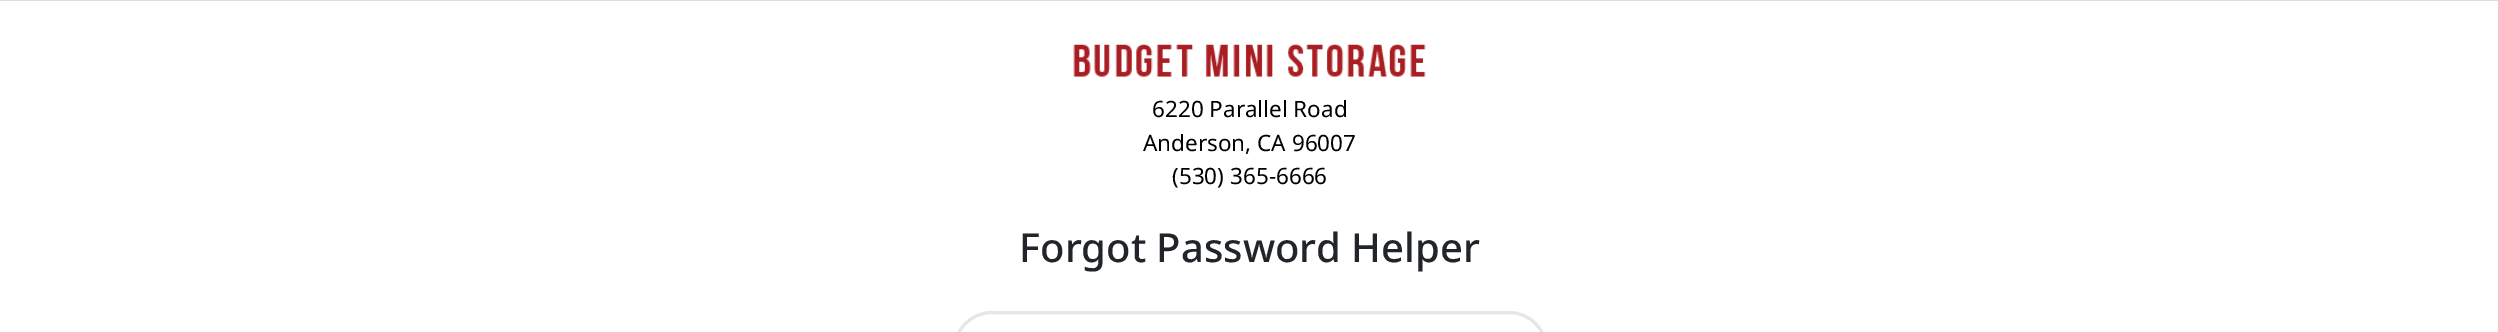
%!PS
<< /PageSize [2498 332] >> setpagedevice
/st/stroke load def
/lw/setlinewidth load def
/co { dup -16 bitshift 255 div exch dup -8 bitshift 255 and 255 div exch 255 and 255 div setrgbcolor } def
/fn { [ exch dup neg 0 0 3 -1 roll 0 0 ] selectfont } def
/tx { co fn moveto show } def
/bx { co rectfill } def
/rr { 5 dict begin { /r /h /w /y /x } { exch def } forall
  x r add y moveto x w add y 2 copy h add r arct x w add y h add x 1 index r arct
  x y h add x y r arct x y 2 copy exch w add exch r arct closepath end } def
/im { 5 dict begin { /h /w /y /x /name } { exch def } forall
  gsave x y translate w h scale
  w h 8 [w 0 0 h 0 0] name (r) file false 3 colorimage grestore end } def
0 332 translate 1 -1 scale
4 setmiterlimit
0 0 2498 332 16#FFFFFF bx
0 0 2498 1 16#DDDDDD bx
(media/1.raw) 1073 44 353 33 im
16#E6E6E6 co
3 lw
954.5 312.5 592 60 37.5 rr st
(6220 Parallel Road) 1152 117 /NotoSans-Regular 22.5 16#000000 tx
(Anderson, CA 96007) 1143 151 /NotoSans-Regular 22.5 16#000000 tx
(\(530\) 365-6666) 1172 184 /NotoSans-Regular 22.5 16#000000 tx
(Forgot Password Helper) 1019 262 /NotoSans-Medium 40 16#212529 tx
showpage
